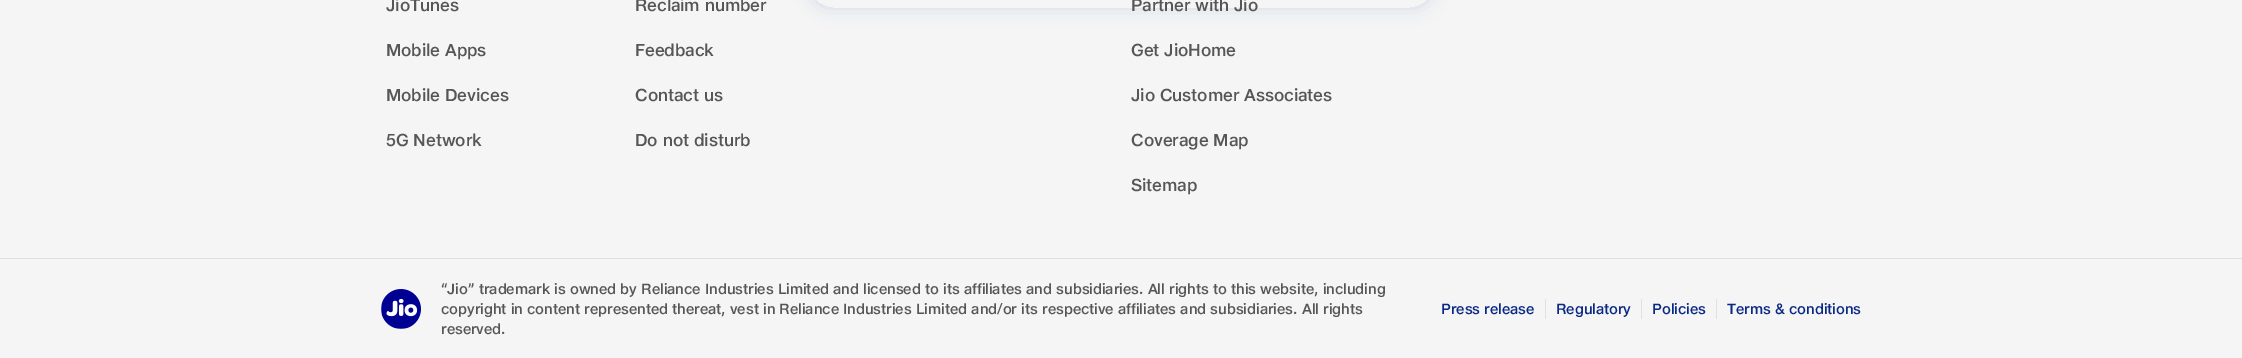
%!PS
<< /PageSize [2242 358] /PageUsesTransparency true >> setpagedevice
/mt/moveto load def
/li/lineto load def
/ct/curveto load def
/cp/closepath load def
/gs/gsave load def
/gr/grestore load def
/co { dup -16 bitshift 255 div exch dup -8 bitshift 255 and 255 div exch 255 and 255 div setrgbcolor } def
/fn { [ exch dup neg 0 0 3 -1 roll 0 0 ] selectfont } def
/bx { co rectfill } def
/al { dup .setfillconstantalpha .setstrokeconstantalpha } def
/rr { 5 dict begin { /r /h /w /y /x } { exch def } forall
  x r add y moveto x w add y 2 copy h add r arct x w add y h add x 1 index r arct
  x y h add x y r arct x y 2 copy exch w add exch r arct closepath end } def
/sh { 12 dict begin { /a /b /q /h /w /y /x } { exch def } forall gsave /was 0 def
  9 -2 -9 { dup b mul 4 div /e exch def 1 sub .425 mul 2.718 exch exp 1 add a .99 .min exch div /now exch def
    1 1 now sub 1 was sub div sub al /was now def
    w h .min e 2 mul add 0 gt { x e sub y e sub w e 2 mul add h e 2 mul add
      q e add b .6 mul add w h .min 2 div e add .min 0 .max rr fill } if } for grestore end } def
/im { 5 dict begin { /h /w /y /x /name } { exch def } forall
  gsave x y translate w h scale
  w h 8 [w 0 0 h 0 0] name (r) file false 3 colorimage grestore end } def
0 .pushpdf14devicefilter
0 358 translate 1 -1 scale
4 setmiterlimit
0 0 2242 358 16#F5F5F5 bx
0 258 2242 1 16#E0E0E0 bx
(media/1.raw) 381 289 40 40 im
1545 299 1 20 16#E0E0E0 bx
1641 299 1 20 16#E0E0E0 bx
1716 299 1 20 16#E0E0E0 bx
gs
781 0 mt 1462 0 li 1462 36 li 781 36 li cp 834 -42 mt 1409 -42 li 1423 -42 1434 -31 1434 -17 ct 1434 -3 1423 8 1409 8 ct 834 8 li 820 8 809 -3 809 -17 ct 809 -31 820 -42 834 -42 ct cp eoclip newpath
16#214796 co
809 -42 625 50 25 9 .16 sh
gr
/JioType-Medium 17.5 fn
16#565656 co
386 11 mt -.1 0 (JioTunes) ashow
386 56 mt -.1 0 (Mobile Apps) ashow
386 101 mt -.1 0 (Mobile Devices) ashow
386 146 mt -.1 0 (5G Network) ashow
635 11 mt -.1 0 (Reclaim number) ashow
635 56 mt -.1 0 (Feedback) ashow
635 101 mt -.1 0 (Contact us) ashow
635 146 mt -.1 0 (Do not disturb) ashow
1131 11 mt -.1 0 (Partner with Jio) ashow
1131 56 mt -.1 0 (Get JioHome) ashow
1131 101 mt -.1 0 (Jio Customer Associates) ashow
1131 146 mt -.1 0 (Coverage Map) ashow
1131 191 mt -.1 0 (Sitemap) ashow
/JioType-Medium 15 fn
441 294 mt -.07 0 (“Jio” trademark is owned by Reliance Industries Limited and licensed to its affiliates and subsidiaries. All rights to this website, including) ashow
441 314 mt -.07 0 (copyright in content represented thereat, vest in Reliance Industries Limited and/or its respective affiliates and subsidiaries. All rights) ashow
441 334 mt -.07 0 (reserved.) ashow
16#0A2885 co
1441 314 mt -.07 0 (Press release) ashow
1556 314 mt -.07 0 (Regulatory) ashow
1652 314 mt -.07 0 (Policies) ashow
1727 314 mt -.07 0 (Terms & conditions) ashow
.poppdf14devicefilter showpage
